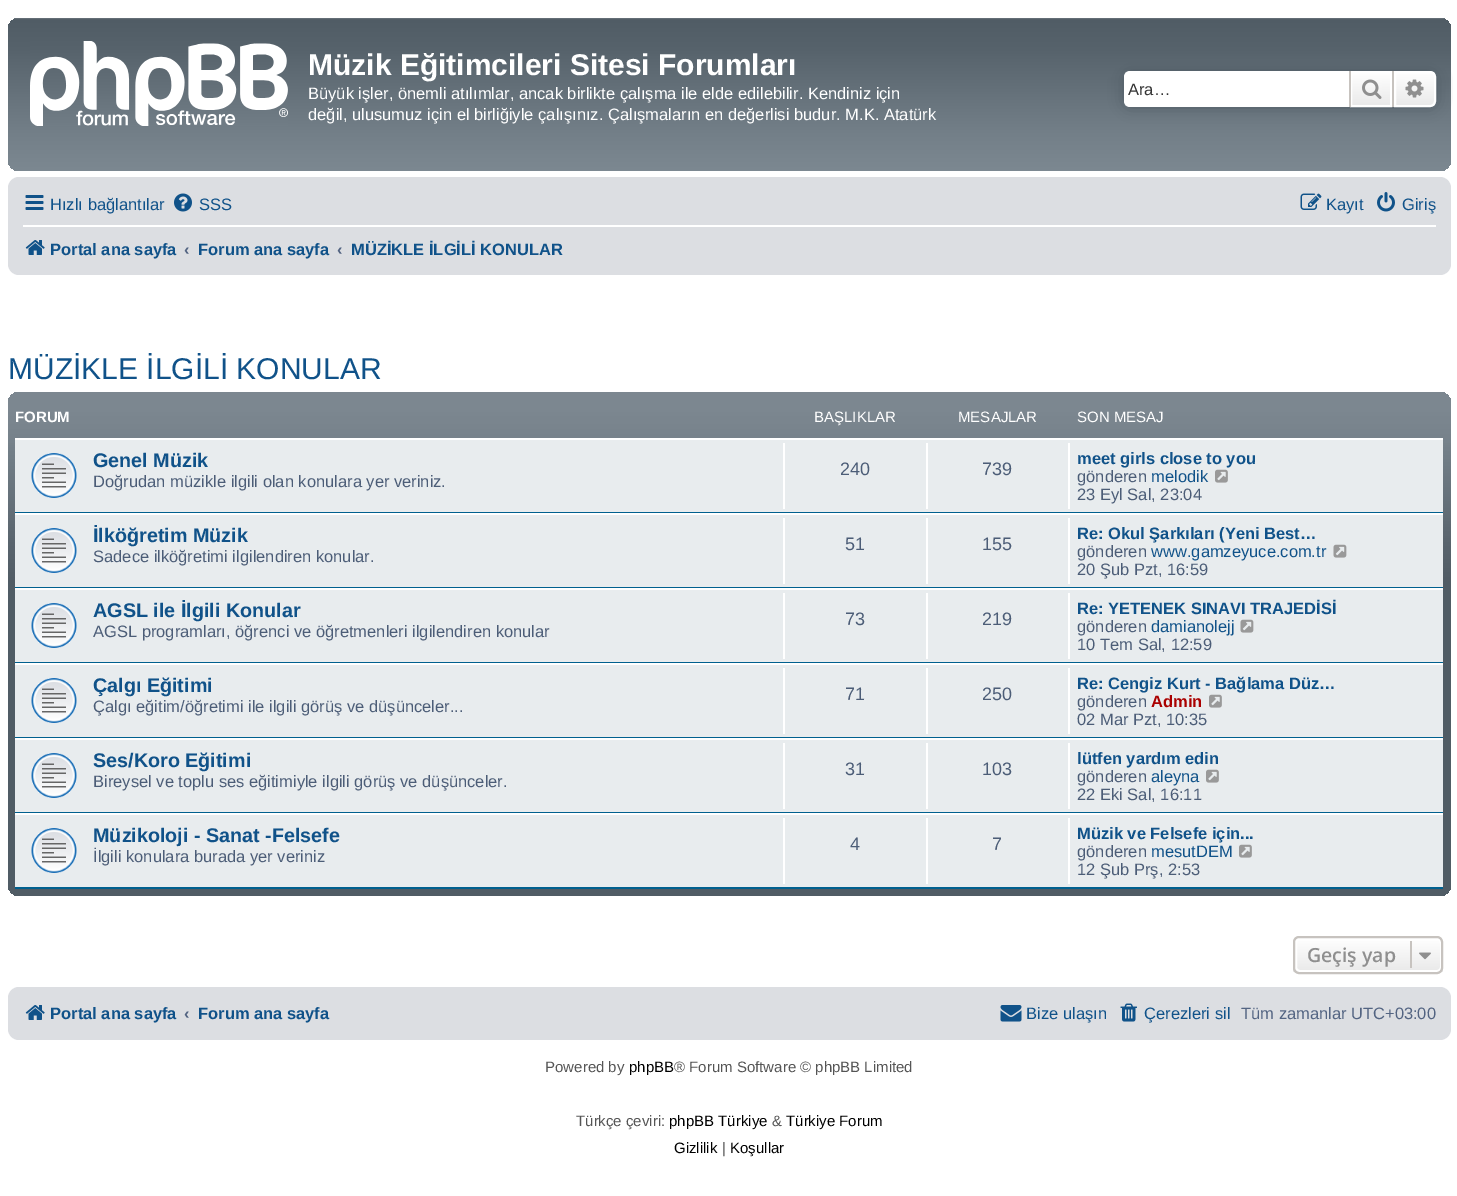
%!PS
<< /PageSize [1457 1196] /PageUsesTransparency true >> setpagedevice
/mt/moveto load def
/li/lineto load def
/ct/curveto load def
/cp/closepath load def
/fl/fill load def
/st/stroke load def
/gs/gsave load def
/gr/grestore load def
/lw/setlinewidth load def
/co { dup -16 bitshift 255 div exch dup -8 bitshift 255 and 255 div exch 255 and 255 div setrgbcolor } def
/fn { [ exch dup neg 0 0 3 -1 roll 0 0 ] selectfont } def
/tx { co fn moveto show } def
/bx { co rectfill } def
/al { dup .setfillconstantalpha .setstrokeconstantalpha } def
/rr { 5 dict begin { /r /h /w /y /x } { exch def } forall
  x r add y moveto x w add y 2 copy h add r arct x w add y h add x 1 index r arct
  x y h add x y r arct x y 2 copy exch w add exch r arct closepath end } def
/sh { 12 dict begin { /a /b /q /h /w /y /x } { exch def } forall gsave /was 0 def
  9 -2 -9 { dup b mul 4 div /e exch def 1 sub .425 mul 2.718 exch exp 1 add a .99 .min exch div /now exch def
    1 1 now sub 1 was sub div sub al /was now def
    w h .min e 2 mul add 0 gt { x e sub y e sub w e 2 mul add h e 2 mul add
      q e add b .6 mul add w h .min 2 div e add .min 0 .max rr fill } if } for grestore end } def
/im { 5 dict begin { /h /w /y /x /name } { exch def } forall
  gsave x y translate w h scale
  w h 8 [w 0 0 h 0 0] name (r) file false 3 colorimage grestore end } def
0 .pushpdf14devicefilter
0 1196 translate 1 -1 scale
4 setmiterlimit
0 0 1457 1196 16#FFFFFF bx
gs 8 18 1443 153 11 rr clip newpath
<< /ShadingType 2 /ColorSpace /DeviceRGB /Coords [729 18 729 171] /Extend [true true] /Function << /FunctionType 3 /Domain [0 1] /Functions [<< /FunctionType 2 /Domain [0 1] /C0 [.431 .467 .498] /C1 [.314 .361 .396] /N 1 >> << /FunctionType 2 /Domain [0 1] /C0 [.314 .361 .396] /C1 [.337 .384 .42] /N 1 >> << /FunctionType 2 /Domain [0 1] /C0 [.337 .384 .42] /C1 [.451 .498 .533] /N 1 >> << /FunctionType 2 /Domain [0 1] /C0 [.451 .498 .533] /C1 [.486 .533 .569] /N 1 >>] /Bounds [.01 .2 .75] /Encode [0 1 0 1 0 1 0 1] >> >> shfill gr
(media/1.raw) 30 41 258 85 im
16#505C65 co
1124 71 312 36 6 7.5 1 sh
16#FFFFFF co
1130 71 mt 1349 71 li 1349 107 li 1130 107 li 1126.5 107 1124 104.5 1124 101 ct 1124 77 li 1124 73.5 1126.5 71 1130 71 ct cp fl
gs 1352 73 mt 1390 73 li 1390 105 li 1352 105 li cp clip newpath
<< /ShadingType 2 /ColorSpace /DeviceRGB /Coords [1371 71 1371 107] /Extend [true true] /Function << /FunctionType 2 /Domain [0 1] /C0 [1 1 1] /C1 [.914 .914 .914] /N 1 >> >> shfill gr
2 lw
1351 72 40 34 rectstroke
1392 71 2 36 16#C7C3BF bx
1349 71 2 36 16#C7C3BF bx
(media/2.raw) 1362 79 20 20 im
gs 1395 72 mt 1430 72 li 1433 72 1435 74 1435 77 ct 1435 101 li 1435 104 1433 106 1430 106 ct 1395 106 li cp clip newpath
<< /ShadingType 2 /ColorSpace /DeviceRGB /Coords [1415 71 1415 107] /Extend [true true] /Function << /FunctionType 2 /Domain [0 1] /C0 [1 1 1] /C1 [.914 .914 .914] /N 1 >> >> shfill gr
16#FFFFFF co
1395 72 mt 1430 72 li 1433 72 1435 74 1435 77 ct 1435 101 li 1435 104 1433 106 1430 106 ct 1395 106 li cp st
(media/3.raw) 1405 79 19 19 im
16#DCDEE2 co
8 177 1443 98 11 rr fl
(media/4.raw) 25 195 19 15 im
(media/5.raw) 174 193 18 19 im
(media/6.raw) 1300 193 22 17 im
(media/7.raw) 1377 192 18 20 im
23 225 1413 2 16#FFFFFF bx
(media/8.raw) 25 240 20 15 im
gs 8 392 1443 504 11 rr clip newpath
<< /ShadingType 2 /ColorSpace /DeviceRGB /Coords [729 391 729 896] /Extend [true true] /Function << /FunctionType 3 /Domain [0 1] /Functions [<< /FunctionType 2 /Domain [0 1] /C0 [.486 .533 .569] /C1 [.486 .529 .565] /N 1 >> << /FunctionType 2 /Domain [0 1] /C0 [.486 .529 .565] /C1 [.463 .51 .545] /N 1 >> << /FunctionType 2 /Domain [0 1] /C0 [.463 .51 .545] /C1 [.357 .4 .435] /N 1 >> << /FunctionType 2 /Domain [0 1] /C0 [.357 .4 .435] /C1 [.314 .361 .396] /N 1 >> << /FunctionType 2 /Domain [0 1] /C0 [.314 .361 .396] /C1 [.314 .361 .396] /N 1 >>] /Bounds [.04 .1 .29 .38] /Encode [0 1 0 1 0 1 0 1 0 1] >> >> shfill gr
15 440 1428 72 16#E8ECEE bx
15 438 1428 2 16#FFFFFF bx
15 512 1428 1 16#00608F bx
(media/9.raw) 31 453 46 45 im
783 443 2 66 16#FFFFFF bx
926 443 2 66 16#FFFFFF bx
1068 443 2 66 16#FFFFFF bx
(media/10.raw) 1215 469 13 14 im
15 515 1428 72 16#E8ECEE bx
15 513 1428 2 16#FFFFFF bx
15 587 1428 1 16#00608F bx
(media/9.raw) 31 528 46 45 im
783 518 2 66 16#FFFFFF bx
926 518 2 66 16#FFFFFF bx
1068 518 2 66 16#FFFFFF bx
(media/11.raw) 1333 544 14 14 im
15 590 1428 72 16#E8ECEE bx
15 588 1428 2 16#FFFFFF bx
15 662 1428 1 16#00608F bx
(media/9.raw) 31 603 46 45 im
783 593 2 66 16#FFFFFF bx
926 593 2 66 16#FFFFFF bx
1068 593 2 66 16#FFFFFF bx
(media/11.raw) 1240 619 14 14 im
15 665 1428 72 16#E8ECEE bx
15 663 1428 2 16#FFFFFF bx
15 737 1428 1 16#00608F bx
(media/9.raw) 31 678 46 45 im
783 668 2 66 16#FFFFFF bx
926 668 2 66 16#FFFFFF bx
1068 668 2 66 16#FFFFFF bx
(media/10.raw) 1209 694 13 14 im
15 740 1428 72 16#E8ECEE bx
15 738 1428 2 16#FFFFFF bx
15 812 1428 1 16#00608F bx
(media/9.raw) 31 753 46 45 im
783 743 2 66 16#FFFFFF bx
926 743 2 66 16#FFFFFF bx
1068 743 2 66 16#FFFFFF bx
(media/10.raw) 1206 769 13 14 im
15 815 1428 72 16#E8ECEE bx
15 813 1428 2 16#FFFFFF bx
15 887 1428 2 16#00608F bx
(media/9.raw) 31 828 46 45 im
783 818 2 66 16#FFFFFF bx
926 818 2 66 16#FFFFFF bx
1068 818 2 66 16#FFFFFF bx
(media/10.raw) 1239 844 13 14 im
gs
1293 936 150 38 6 rr clip newpath
gs 1293 938 mt 1443 938 li 1443 972 li 1293 972 li cp clip newpath
<< /ShadingType 2 /ColorSpace /DeviceRGB /Coords [1368 938 1368 972] /Extend [true true] /Function << /FunctionType 2 /Domain [0 1] /C0 [1 1 1] /C1 [.914 .914 .914] /N 1 >> >> shfill gr
gr
1296 939 145 32 4 rr st
16#C7C3BF co
1294 937 148 36 5 rr st
1410 941 2 27 16#C7C3BF bx
(media/12.raw) 1419 952 12 8 im
16#DCDEE2 co
8 987 1443 53 11 rr fl
(media/8.raw) 25 1005 20 15 im
(media/13.raw) 1000 1005 22 17 im
(media/14.raw) 1120 1003 17 19 im
(Müzik Eğitimcileri Sitesi Forumları) 308 75 /LiberationSans-Bold 30 16#FFFFFF tx
(Büyük işler, önemli atılımlar, ancak birlikte çalışma ile elde edilebilir. Kendiniz için) 308 99 /LiberationSans-Regular 16.5 16#FFFFFF tx
(değil, ulusumuz için el birliğiyle çalışınız. Çalışmaların en değerlisi budur. M.K. Atatürk) 308 120 /LiberationSans-Regular 16.5 16#FFFFFF tx
(Ara…) 1128 95 /LiberationSans-Regular 16.5 16#333333 tx
(Hızlı bağlantılar) 50 210 /LiberationSans-Regular 16.5 16#105289 tx
(SSS) 199 210 /LiberationSans-Regular 16.5 16#105289 tx
(Kayıt) 1326 210 /LiberationSans-Regular 16.5 16#105289 tx
(Giriş) 1402 210 /LiberationSans-Regular 16.5 16#105289 tx
(Portal ana sayfa) 50 255 /LiberationSans-Bold 16.5 16#105289 tx
(‹) 184 255 /LiberationSans-Bold 16.5 16#536482 tx
(Forum ana sayfa) 198 255 /LiberationSans-Bold 16.5 16#105289 tx
(‹) 337 255 /LiberationSans-Bold 16.5 16#536482 tx
(MÜZİKLE İLGİLİ KONULAR) 351 255 /LiberationSans-Bold 16.5 16#105289 tx
(MÜZİKLE İLGİLİ KONULAR) 8 379 /LiberationSans-Regular 30 16#105289 tx
(FORUM) 15 422 /LiberationSans-Bold 15 16#FFFFFF tx
(BAŞLIKLAR) 814 422 /LiberationSans-Regular 15 16#FFFFFF tx
(MESAJLAR) 958 422 /LiberationSans-Regular 15 16#FFFFFF tx
(SON MESAJ) 1077 422 /LiberationSans-Regular 15 16#FFFFFF tx
(Genel Müzik) 93 467 /LiberationSans-Bold 19.75 16#105289 tx
(Doğrudan müzikle ilgili olan konulara yer veriniz.) 93 487 /LiberationSans-Regular 16.5 16#4C5D77 tx
(240) 840 475 /LiberationSans-Regular 18 16#4C5D77 tx
(739) 982 475 /LiberationSans-Regular 18 16#4C5D77 tx
(meet girls close to you) 1077 464 /LiberationSans-Bold 16.5 16#105289 tx
(gönderen) 1077 482 /LiberationSans-Regular 16.5 16#4C5D77 tx
(melodik) 1151 482 /LiberationSans-Regular 16.5 16#105289 tx
(23 Eyl Sal, 23:04) 1077 500 /LiberationSans-Regular 16.5 16#4C5D77 tx
(İlköğretim Müzik) 93 542 /LiberationSans-Bold 19.75 16#105289 tx
(Sadece ilköğretimi ilgilendiren konular.) 93 562 /LiberationSans-Regular 16.5 16#4C5D77 tx
(51) 845 550 /LiberationSans-Regular 18 16#4C5D77 tx
(155) 982 550 /LiberationSans-Regular 18 16#4C5D77 tx
(Re: Okul Şarkıları \(Yeni Best…) 1077 539 /LiberationSans-Bold 16.5 16#105289 tx
(gönderen) 1077 557 /LiberationSans-Regular 16.5 16#4C5D77 tx
(www.gamzeyuce.com.tr) 1151 557 /LiberationSans-Regular 16.5 16#105289 tx
(20 Şub Pzt, 16:59) 1077 575 /LiberationSans-Regular 16.5 16#4C5D77 tx
(AGSL ile İlgili Konular) 93 617 /LiberationSans-Bold 19.75 16#105289 tx
(AGSL programları, öğrenci ve öğretmenleri ilgilendiren konular) 93 637 /LiberationSans-Regular 16.5 16#4C5D77 tx
(73) 845 625 /LiberationSans-Regular 18 16#4C5D77 tx
(219) 982 625 /LiberationSans-Regular 18 16#4C5D77 tx
(Re: YETENEK SINAVI TRAJEDİSİ) 1077 614 /LiberationSans-Bold 16.5 16#105289 tx
(gönderen) 1077 632 /LiberationSans-Regular 16.5 16#4C5D77 tx
(damianolejj) 1151 632 /LiberationSans-Regular 16.5 16#105289 tx
(10 Tem Sal, 12:59) 1077 650 /LiberationSans-Regular 16.5 16#4C5D77 tx
(Çalgı Eğitimi) 93 692 /LiberationSans-Bold 19.75 16#105289 tx
(Çalgı eğitim/öğretimi ile ilgili görüş ve düşünceler...) 93 712 /LiberationSans-Regular 16.5 16#4C5D77 tx
(71) 845 700 /LiberationSans-Regular 18 16#4C5D77 tx
(250) 982 700 /LiberationSans-Regular 18 16#4C5D77 tx
(Re: Cengiz Kurt - Bağlama Düz…) 1077 689 /LiberationSans-Bold 16.5 16#105289 tx
(gönderen) 1077 707 /LiberationSans-Regular 16.5 16#4C5D77 tx
(Admin) 1151 707 /LiberationSans-Bold 16.5 16#AA0000 tx
(02 Mar Pzt, 10:35) 1077 725 /LiberationSans-Regular 16.5 16#4C5D77 tx
(Ses/Koro Eğitimi) 93 767 /LiberationSans-Bold 19.75 16#105289 tx
(Bireysel ve toplu ses eğitimiyle ilgili görüş ve düşünceler.) 93 787 /LiberationSans-Regular 16.5 16#4C5D77 tx
(31) 845 775 /LiberationSans-Regular 18 16#4C5D77 tx
(103) 982 775 /LiberationSans-Regular 18 16#4C5D77 tx
(lütfen yardım edin) 1077 764 /LiberationSans-Bold 16.5 16#105289 tx
(gönderen) 1077 782 /LiberationSans-Regular 16.5 16#4C5D77 tx
(aleyna) 1151 782 /LiberationSans-Regular 16.5 16#105289 tx
(22 Eki Sal, 16:11) 1077 800 /LiberationSans-Regular 16.5 16#4C5D77 tx
(Müzikoloji - Sanat -Felsefe) 93 842 /LiberationSans-Bold 19.75 16#105289 tx
(İlgili konulara burada yer veriniz) 93 862 /LiberationSans-Regular 16.5 16#4C5D77 tx
(4) 850 850 /LiberationSans-Regular 18 16#4C5D77 tx
(7) 992 850 /LiberationSans-Regular 18 16#4C5D77 tx
(Müzik ve Felsefe için...) 1077 839 /LiberationSans-Bold 16.5 16#105289 tx
(gönderen) 1077 857 /LiberationSans-Regular 16.5 16#4C5D77 tx
(mesutDEM) 1151 857 /LiberationSans-Regular 16.5 16#105289 tx
(12 Şub Prş, 2:53) 1077 875 /LiberationSans-Regular 16.5 16#4C5D77 tx
(Geçiş yap) 1307 962 /OpenSans-SemiBold 19.5 16#8F8F8F tx
(Portal ana sayfa) 50 1019 /LiberationSans-Bold 16.5 16#105289 tx
(‹) 184 1019 /LiberationSans-Bold 16.5 16#536482 tx
(Forum ana sayfa) 198 1019 /LiberationSans-Bold 16.5 16#105289 tx
(Bize ulaşın) 1026 1019 /LiberationSans-Regular 16.5 16#105289 tx
(Çerezleri sil) 1144 1019 /LiberationSans-Regular 16.5 16#105289 tx
(Tüm zamanlar UTC+03:00) 1241 1019 /LiberationSans-Regular 16.5 16#536482 tx
(Powered by) 545 1072 /LiberationSans-Regular 15 16#555555 tx
(phpBB) 629 1072 /LiberationSans-Regular 15 16#000000 tx
(® Forum Software © phpBB Limited) 674 1072 /LiberationSans-Regular 15 16#555555 tx
(Türkçe çeviri:) 576 1126 /LiberationSans-Regular 15 16#555555 tx
(phpBB Türkiye) 669 1126 /LiberationSans-Regular 15 16#000000 tx
(&) 772 1126 /LiberationSans-Regular 15 16#555555 tx
(Türkiye Forum) 786 1126 /LiberationSans-Regular 15 16#000000 tx
(Gizlilik) 674 1153 /LiberationSans-Regular 15 16#000000 tx
(|) 722 1153 /LiberationSans-Regular 15 16#555555 tx
(Koşullar) 730 1153 /LiberationSans-Regular 15 16#000000 tx
.poppdf14devicefilter showpage
